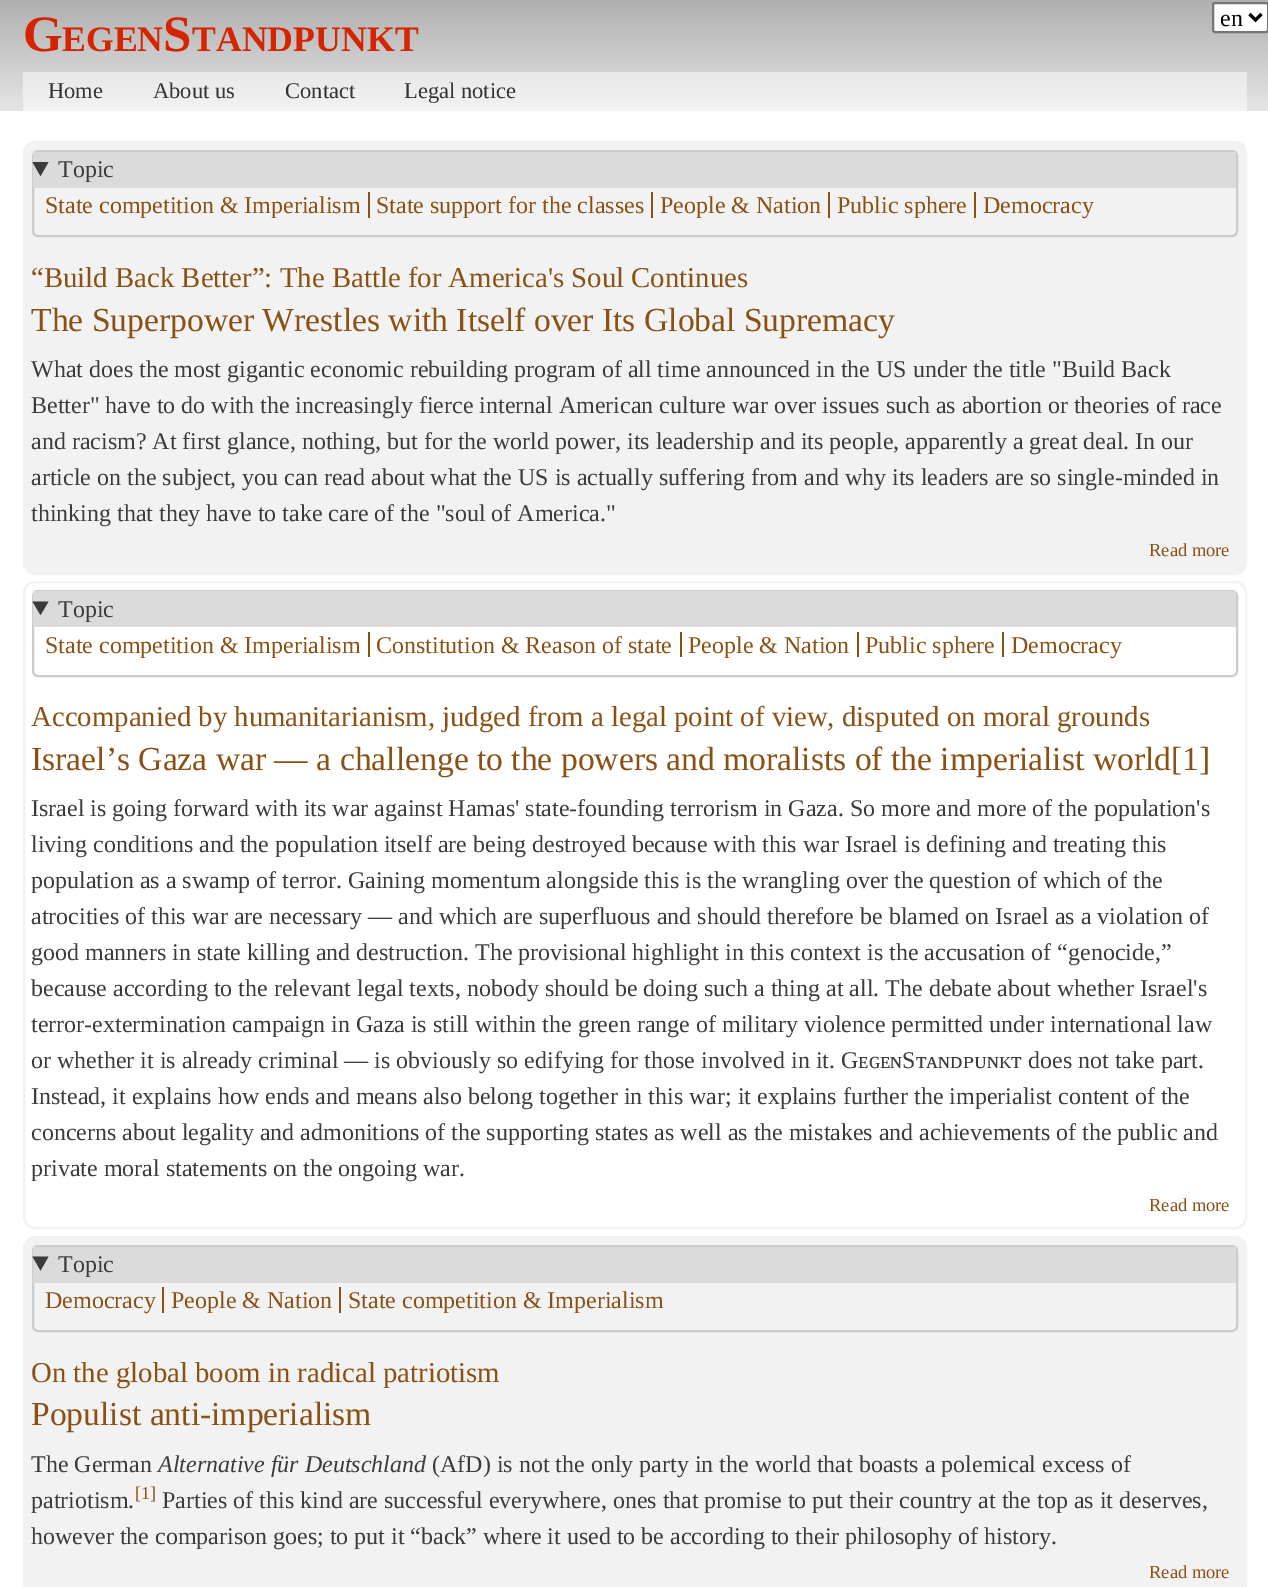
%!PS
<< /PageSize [1268 1587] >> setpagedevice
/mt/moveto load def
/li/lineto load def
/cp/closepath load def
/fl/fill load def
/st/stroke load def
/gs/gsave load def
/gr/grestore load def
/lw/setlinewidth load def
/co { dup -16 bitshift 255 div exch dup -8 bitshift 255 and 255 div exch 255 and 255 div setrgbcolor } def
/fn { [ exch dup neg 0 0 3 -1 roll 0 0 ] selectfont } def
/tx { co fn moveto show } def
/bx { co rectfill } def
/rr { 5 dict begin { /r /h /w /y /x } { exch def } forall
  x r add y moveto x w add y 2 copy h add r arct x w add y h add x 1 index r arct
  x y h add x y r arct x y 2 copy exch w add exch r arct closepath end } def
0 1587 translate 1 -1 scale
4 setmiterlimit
0 0 1268 1587 16#FFFFFF bx
gs 0 0 mt 1268 0 li 1268 111 li 0 111 li cp clip newpath
<< /ShadingType 2 /ColorSpace /DeviceRGB /Coords [635 0 635 111] /Extend [true true] /Function << /FunctionType 2 /Domain [0 1] /C0 [.69 .69 .69] /C1 [.898 .898 .898] /N 1 >> >> shfill gr
gs 23 72 mt 1247 72 li 1247 111 li 23 111 li cp clip newpath
<< /ShadingType 2 /ColorSpace /DeviceRGB /Coords [635 0 635 111] /Extend [true true] /Function << /FunctionType 2 /Domain [0 1] /C0 [.847 .847 .847] /C1 [.949 .949 .949] /N 1 >> >> shfill gr
1213 3 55 29 2 rr gs fl gr
16#767676 co
2 lw
st
16#000000 co
3 lw
1249.5 14 mt 1255.5 20 li 1261.5 14 li st
16#F2F2F2 co
24 142 1222 432 11 rr gs fl gr
2 lw
st
16#CCCCCC co
33 151 1204 85 5 rr st
33 152 1203 36 16#DBDBDB bx
16#3B3B3B co
32.5 162 mt 48.5 162 li 40.5 176 li cp fl
368 192 2 26 16#8A5014 bx
651 192 2 26 16#8A5014 bx
828 192 2 26 16#8A5014 bx
974 192 2 26 16#8A5014 bx
16#F2F2F2 co
24 582 1222 646 11 rr st
16#CCCCCC co
33 591 1204 85 5 rr st
33 591 1203 36 16#DBDBDB bx
16#3B3B3B co
32.5 601.5 mt 48.5 601.5 li 40.5 615 li cp fl
368 632 2 25 16#8A5014 bx
680 632 2 25 16#8A5014 bx
857 632 2 25 16#8A5014 bx
1002 632 2 25 16#8A5014 bx
16#F2F2F2 co
24 1237 1222 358 11 rr gs fl gr
st
16#CCCCCC co
33 1246 1204 85 5 rr st
33 1247 1203 36 16#DBDBDB bx
16#3B3B3B co
32.5 1256.5 mt 48.5 1256.5 li 40.5 1270.5 li cp fl
162 1287 2 26 16#8A5014 bx
339 1287 2 26 16#8A5014 bx
(G) 23 51 /LiberationSerif-Bold 51 16#D52401 tx
(EGEN) 62 51 /LiberationSerif-Bold 35.75 16#D52401 tx
(S) 163 51 /LiberationSerif-Bold 51 16#D52401 tx
(TANDPUNKT) 192 51 /LiberationSerif-Bold 35.75 16#D52401 tx
(en) 1220 26 /LiberationSerif-Regular 24 16#000000 tx
(Home) 48 98 /LiberationSerif-Regular 22.5 16#333333 tx
(About us) 153 98 /LiberationSerif-Regular 22.5 16#333333 tx
(Contact) 285 98 /LiberationSerif-Regular 22.5 16#333333 tx
(Legal notice) 404 98 /LiberationSerif-Regular 22.5 16#333333 tx
(Topic) 58 177 /LiberationSerif-Regular 24 16#3B3B3B tx
(State competition & Imperialism) 45 213 /LiberationSerif-Regular 24 16#8A5014 tx
(State support for the classes) 376 213 /LiberationSerif-Regular 24 16#8A5014 tx
(People & Nation) 660 213 /LiberationSerif-Regular 24 16#8A5014 tx
(Public sphere) 837 213 /LiberationSerif-Regular 24 16#8A5014 tx
(Democracy) 983 213 /LiberationSerif-Regular 24 16#8A5014 tx
(“Build Back Better”: The Battle for America's Soul Continues) 31 287 /LiberationSerif-Regular 28.8 16#8A5014 tx
(The Superpower Wrestles with Itself over Its Global Supremacy) 31 331 /LiberationSerif-Regular 33.6 16#8A5014 tx
(What does the most gigantic economic rebuilding program of all time announced in the US under the title "Build Back) 31 377 /LiberationSerif-Regular 24 16#3B3B3B tx
(Better" have to do with the increasingly fierce internal American culture war over issues such as abortion or theories of race) 31 413 /LiberationSerif-Regular 24 16#3B3B3B tx
(and racism? At first glance, nothing, but for the world power, its leadership and its people, apparently a great deal. In our) 31 449 /LiberationSerif-Regular 24 16#3B3B3B tx
(article on the subject, you can read about what the US is actually suffering from and why its leaders are so single-minded in) 31 485 /LiberationSerif-Regular 24 16#3B3B3B tx
(thinking that they have to take care of the "soul of America.") 31 521 /LiberationSerif-Regular 24 16#3B3B3B tx
(Read more) 1149 556 /LiberationSerif-Regular 18.5 16#8A5014 tx
(Topic) 58 617 /LiberationSerif-Regular 24 16#3B3B3B tx
(State competition & Imperialism) 45 653 /LiberationSerif-Regular 24 16#8A5014 tx
(Constitution & Reason of state) 376 653 /LiberationSerif-Regular 24 16#8A5014 tx
(People & Nation) 688 653 /LiberationSerif-Regular 24 16#8A5014 tx
(Public sphere) 865 653 /LiberationSerif-Regular 24 16#8A5014 tx
(Democracy) 1011 653 /LiberationSerif-Regular 24 16#8A5014 tx
(Accompanied by humanitarianism, judged from a legal point of view, disputed on moral grounds) 31 726 /LiberationSerif-Regular 28.8 16#8A5014 tx
(Israel’s Gaza war — a challenge to the powers and moralists of the imperialist world[1]) 31 770 /LiberationSerif-Regular 33.6 16#8A5014 tx
(Israel is going forward with its war against Hamas' state-founding terrorism in Gaza. So more and more of the population's) 31 816 /LiberationSerif-Regular 24 16#3B3B3B tx
(living conditions and the population itself are being destroyed because with this war Israel is defining and treating this) 31 852 /LiberationSerif-Regular 24 16#3B3B3B tx
(population as a swamp of terror. Gaining momentum alongside this is the wrangling over the question of which of the) 31 888 /LiberationSerif-Regular 24 16#3B3B3B tx
(atrocities of this war are necessary — and which are superfluous and should therefore be blamed on Israel as a violation of) 31 924 /LiberationSerif-Regular 24 16#3B3B3B tx
(good manners in state killing and destruction. The provisional highlight in this context is the accusation of “genocide,”) 31 960 /LiberationSerif-Regular 24 16#3B3B3B tx
(because according to the relevant legal texts, nobody should be doing such a thing at all. The debate about whether Israel's) 31 996 /LiberationSerif-Regular 24 16#3B3B3B tx
(terror-extermination campaign in Gaza is still within the green range of military violence permitted under international law) 31 1032 /LiberationSerif-Regular 24 16#3B3B3B tx
(or whether it is already criminal — is obviously so edifying for those involved in it. GᴇɢᴇɴSᴛᴀɴᴅᴘᴜɴᴋᴛ does not take part.) 31 1068 /LiberationSerif-Regular 24 16#3B3B3B tx
(Instead, it explains how ends and means also belong together in this war; it explains further the imperialist content of the) 31 1104 /LiberationSerif-Regular 24 16#3B3B3B tx
(concerns about legality and admonitions of the supporting states as well as the mistakes and achievements of the public and) 31 1140 /LiberationSerif-Regular 24 16#3B3B3B tx
(private moral statements on the ongoing war.) 31 1176 /LiberationSerif-Regular 24 16#3B3B3B tx
(Read more) 1149 1211 /LiberationSerif-Regular 18.5 16#8A5014 tx
(Topic) 58 1272 /LiberationSerif-Regular 24 16#3B3B3B tx
(Democracy) 45 1308 /LiberationSerif-Regular 24 16#8A5014 tx
(People & Nation) 171 1308 /LiberationSerif-Regular 24 16#8A5014 tx
(State competition & Imperialism) 348 1308 /LiberationSerif-Regular 24 16#8A5014 tx
(On the global boom in radical patriotism) 31 1382 /LiberationSerif-Regular 28.8 16#8A5014 tx
(Populist anti-imperialism) 31 1425 /LiberationSerif-Regular 33.6 16#8A5014 tx
(The German) 31 1472 /LiberationSerif-Regular 24 16#3B3B3B tx
(Alternative für Deutschland) 158 1472 /LiberationSerif-Italic 24 16#3B3B3B tx
(\(AfD\) is not the only party in the world that boasts a polemical excess of) 432 1472 /LiberationSerif-Regular 24 16#3B3B3B tx
(patriotism.) 31 1508 /LiberationSerif-Regular 24 16#3B3B3B tx
([1]) 135 1499 /LiberationSerif-Regular 18 16#8A5014 tx
(Parties of this kind are successful everywhere, ones that promise to put their country at the top as it deserves,) 162 1508 /LiberationSerif-Regular 24 16#3B3B3B tx
(however the comparison goes; to put it “back” where it used to be according to their philosophy of history.) 31 1544 /LiberationSerif-Regular 24 16#3B3B3B tx
(Read more) 1149 1578 /LiberationSerif-Regular 18.5 16#8A5014 tx
showpage
